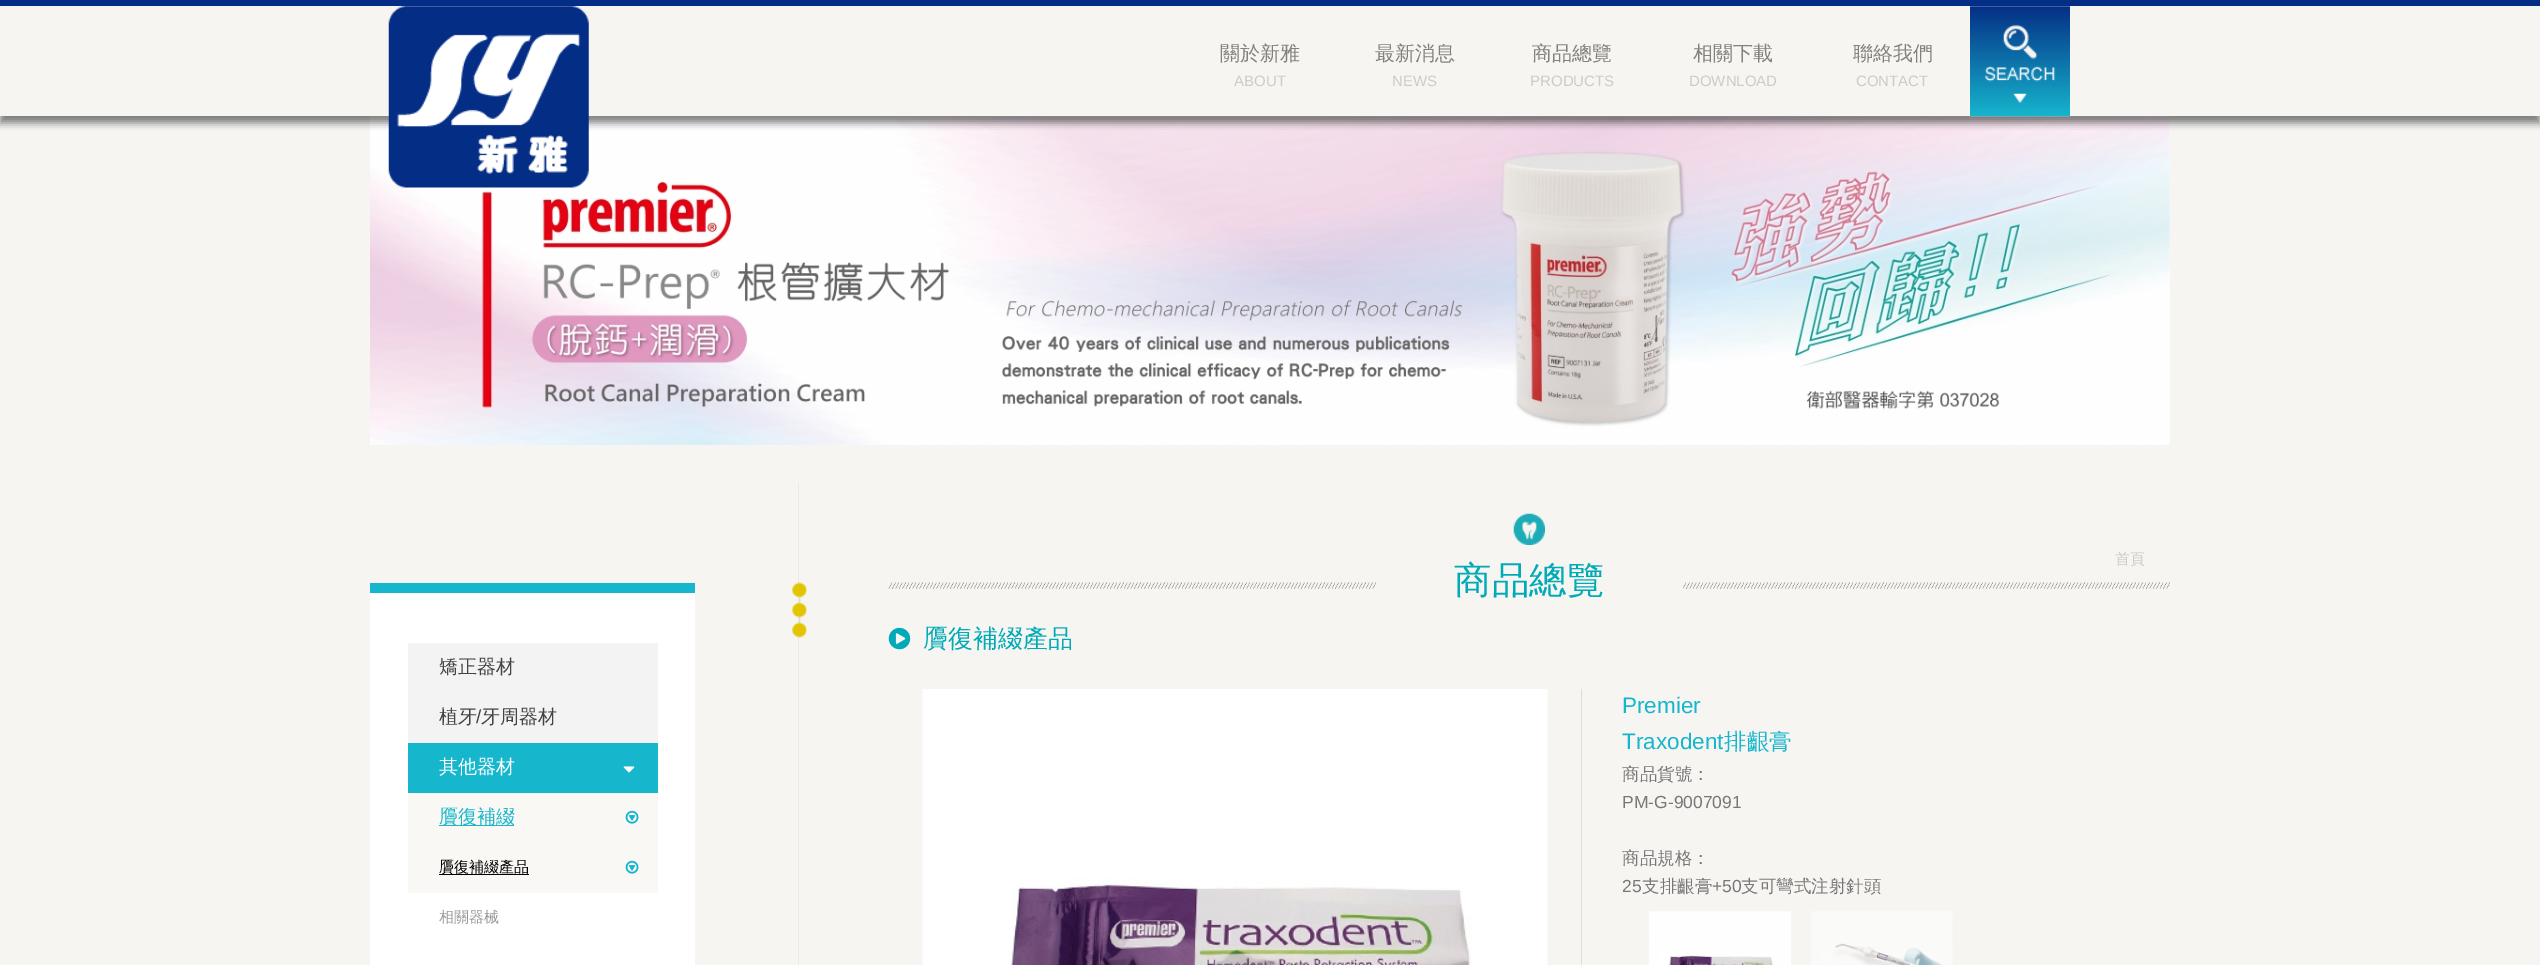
%!PS
<< /PageSize [2540 965] /PageUsesTransparency true >> setpagedevice
/gs/gsave load def
/gr/grestore load def
/co { dup -16 bitshift 255 div exch dup -8 bitshift 255 and 255 div exch 255 and 255 div setrgbcolor } def
/fn { [ exch dup neg 0 0 3 -1 roll 0 0 ] selectfont } def
/tx { co fn moveto show } def
/bx { co rectfill } def
/al { dup .setfillconstantalpha .setstrokeconstantalpha } def
/rr { 5 dict begin { /r /h /w /y /x } { exch def } forall
  x r add y moveto x w add y 2 copy h add r arct x w add y h add x 1 index r arct
  x y h add x y r arct x y 2 copy exch w add exch r arct closepath end } def
/sh { 12 dict begin { /a /b /q /h /w /y /x } { exch def } forall gsave /was 0 def
  9 -2 -9 { dup b mul 4 div /e exch def 1 sub .425 mul 2.718 exch exp 1 add a .99 .min exch div /now exch def
    1 1 now sub 1 was sub div sub al /was now def
    w h .min e 2 mul add 0 gt { x e sub y e sub w e 2 mul add h e 2 mul add
      q e add b .6 mul add w h .min 2 div e add .min 0 .max rr fill } if } for grestore end } def
/im { 5 dict begin { /h /w /y /x /name } { exch def } forall
  gsave x y translate w h scale
  w h 8 [w 0 0 h 0 0] name (r) file false 3 colorimage grestore end } def
0 .pushpdf14devicefilter
0 965 translate 1 -1 scale
4 setmiterlimit
0 0 2540 965 16#F6F5F1 bx
(media/3.raw) 370 116 1800 329 im
gs
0 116 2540 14 rectclip
16#000000 co
0 6 2540 117 0 4 .5 sh
gr
0 0 2540 6 16#042D85 bx
(media/1.raw) 388 6 201 182 im
(media/2.raw) 1970 6 100 111 im
370 593 325 372 16#FFFFFF bx
370 583 325 10 16#16B6CC bx
408 643 250 100 16#F3F3F3 bx
408 743 250 50 16#16B6CC bx
(media/4.raw) 623 766 12 7 im
408 793 250 100 16#F9F8F5 bx
439 825 75 1 16#16B6CC bx
(media/5.raw) 625 810 14 14 im
439 874 90 1 16#000000 bx
(media/5.raw) 625 860 14 14 im
798 483 1 482 16#EAE9E5 bx
(media/6.raw) 888 582 1282 7 im
1376 582 307 7 16#F6F5F1 bx
(media/7.raw) 1513 513 32 32 im
(media/8.raw) 792 582 15 56 im
(media/9.raw) 888 627 23 23 im
1581 689 1 276 16#DEDEDE bx
(media/10.raw) 922 689 626 276 im
(media/11.raw) 1649 911 142 54 im
(media/12.raw) 1811 911 142 54 im
(關於新雅) 1220 60 /WenQuanYiZenHei-Medium 20 16#81817F tx
(ABOUT) 1234 86 /LiberationSans-Regular 15 16#CCCCC3 tx
(最新消息) 1375 60 /WenQuanYiZenHei-Medium 20 16#81817F tx
(NEWS) 1392 86 /LiberationSans-Regular 15 16#CCCCC3 tx
(商品總覽) 1532 60 /WenQuanYiZenHei-Medium 20 16#81817F tx
(PRODUCTS) 1530 86 /LiberationSans-Regular 15 16#CCCCC3 tx
(相關下載) 1693 60 /WenQuanYiZenHei-Medium 20 16#81817F tx
(DOWNLOAD) 1689 86 /LiberationSans-Regular 15 16#CCCCC3 tx
(聯絡我們) 1853 60 /WenQuanYiZenHei-Medium 20 16#81817F tx
(CONTACT) 1856 86 /LiberationSans-Regular 15 16#CCCCC3 tx
(矯正器材) 439 673 /WenQuanYiZenHei-Medium 19 16#444444 tx
(植牙) 439 723 /WenQuanYiZenHei-Medium 19 16#444444 tx
(/) 476 723 /LiberationSans-Regular 19 16#444444 tx
(牙周器材) 481 723 /WenQuanYiZenHei-Medium 19 16#444444 tx
(其他器材) 439 773 /WenQuanYiZenHei-Medium 19 16#FFFFFF tx
(贗復補綴) 439 823 /WenQuanYiZenHei-Medium 19 16#16B6CC tx
(贗復補綴產品) 439 872 /WenQuanYiZenHei-Medium 15 16#000000 tx
(相關器械) 439 922 /WenQuanYiZenHei-Medium 15 16#999999 tx
(首頁) 2115 564 /WenQuanYiZenHei-Medium 15 16#CCCCCC tx
(商品總覽) 1454 593 /WenQuanYiZenHei-Medium 37.5 16#00AAB7 tx
(贗復補綴產品) 923 647 /WenQuanYiZenHei-Medium 25 16#00AAB7 tx
(Premier) 1622 713 /LiberationSans-Regular 22.5 16#16B6CC tx
(Traxodent) 1622 749 /LiberationSans-Regular 22.5 16#16B6CC tx
(排齦膏) 1724 749 /WenQuanYiZenHei-Medium 22.5 16#16B6CC tx
(商品貨號：) 1622 780 /WenQuanYiZenHei-Medium 17.5 16#777777 tx
(PM-G-9007091) 1622 808 /LiberationSans-Regular 17.5 16#777777 tx
(商品規格：) 1622 864 /WenQuanYiZenHei-Medium 17.5 16#777777 tx
(25) 1622 892 /LiberationSans-Regular 17.5 16#777777 tx
(支排齦膏) 1642 892 /WenQuanYiZenHei-Medium 17.5 16#777777 tx
(+50) 1712 892 /LiberationSans-Regular 17.5 16#777777 tx
(支可彎式注射針頭) 1741 892 /WenQuanYiZenHei-Medium 17.5 16#777777 tx
.poppdf14devicefilter showpage
